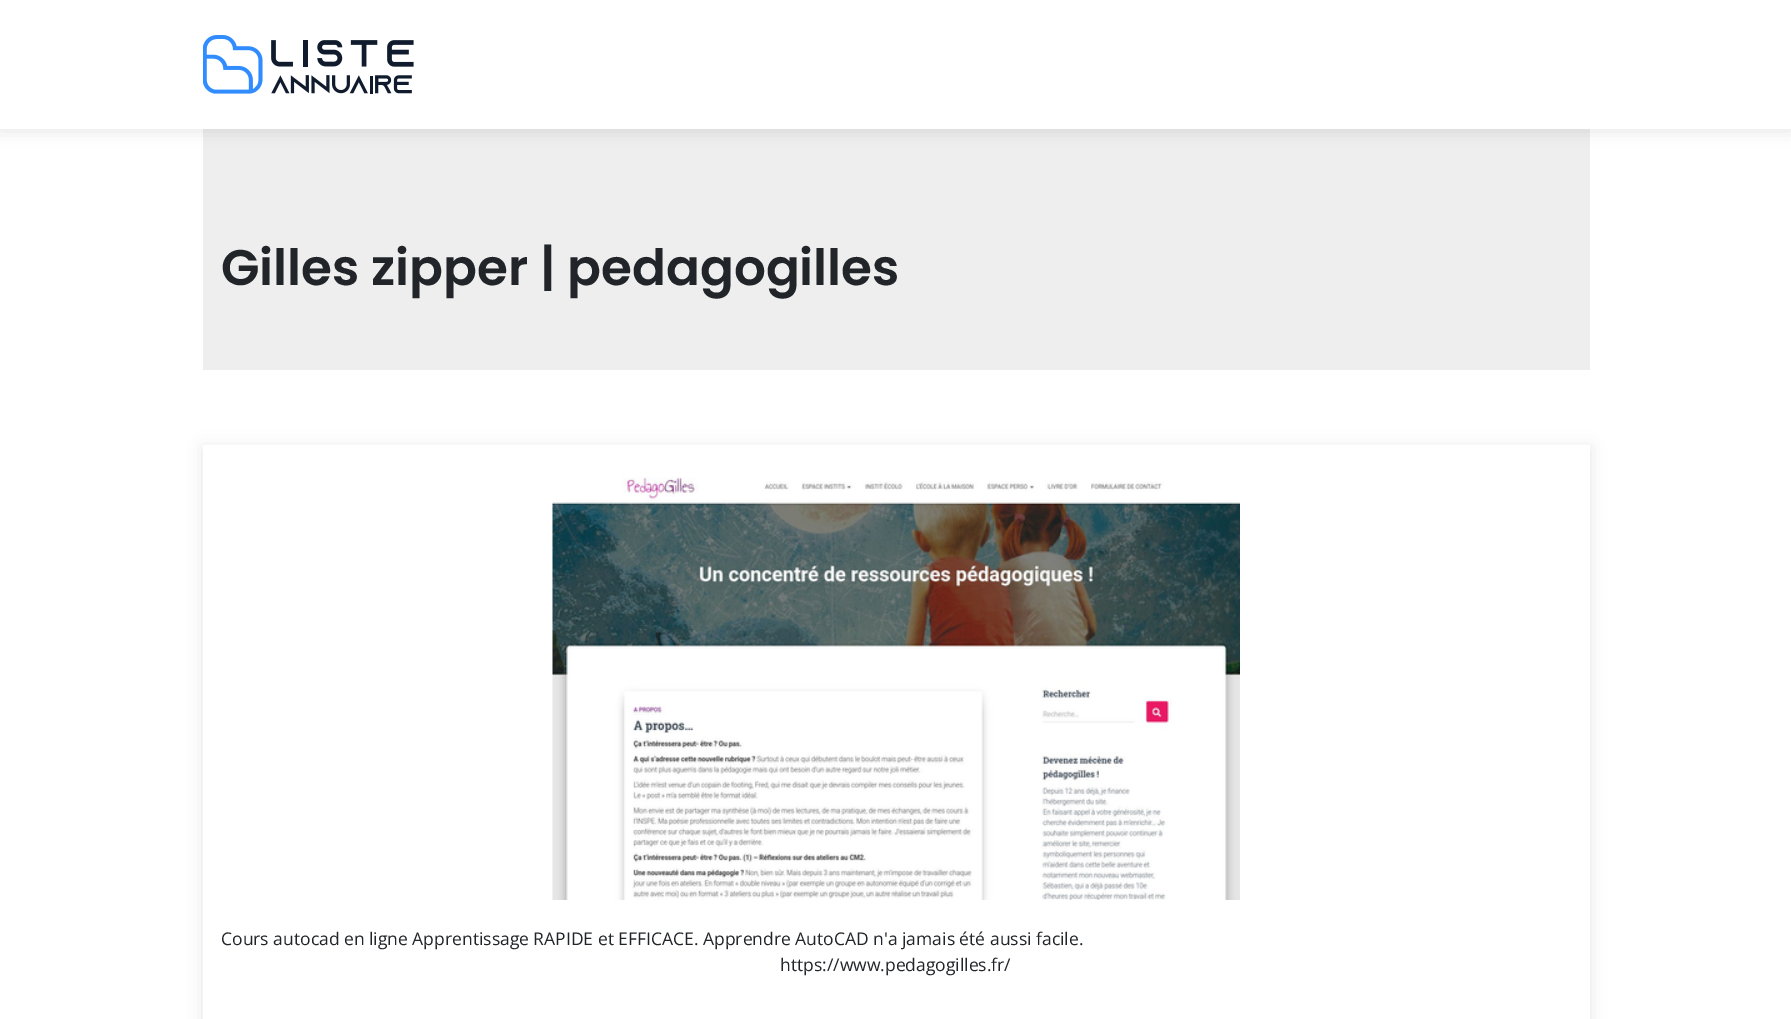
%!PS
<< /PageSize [1791 1019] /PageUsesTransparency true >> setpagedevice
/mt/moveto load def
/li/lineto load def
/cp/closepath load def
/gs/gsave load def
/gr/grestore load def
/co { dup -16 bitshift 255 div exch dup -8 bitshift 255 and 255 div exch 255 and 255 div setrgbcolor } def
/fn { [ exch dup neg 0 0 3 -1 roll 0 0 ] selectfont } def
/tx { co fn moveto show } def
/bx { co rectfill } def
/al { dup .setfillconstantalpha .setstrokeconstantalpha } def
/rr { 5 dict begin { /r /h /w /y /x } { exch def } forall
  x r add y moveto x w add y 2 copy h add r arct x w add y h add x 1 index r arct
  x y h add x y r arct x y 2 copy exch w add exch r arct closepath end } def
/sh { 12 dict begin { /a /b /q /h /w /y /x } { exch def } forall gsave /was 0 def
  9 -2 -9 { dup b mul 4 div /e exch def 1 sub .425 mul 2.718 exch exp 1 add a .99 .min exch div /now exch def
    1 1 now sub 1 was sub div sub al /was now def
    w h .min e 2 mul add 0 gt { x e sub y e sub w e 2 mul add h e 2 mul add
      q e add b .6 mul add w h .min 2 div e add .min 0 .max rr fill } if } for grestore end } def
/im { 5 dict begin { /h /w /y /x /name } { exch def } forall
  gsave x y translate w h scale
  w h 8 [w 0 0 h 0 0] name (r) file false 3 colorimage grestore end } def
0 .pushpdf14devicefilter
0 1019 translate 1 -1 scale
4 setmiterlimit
0 0 1791 1019 16#FFFFFF bx
203 129 1387 241 16#EEEEEE bx
16#000000 co
0 3 1791 128 0 8 .1 sh
0 0 1791 129 16#FFFFFF bx
(media/1.raw) 203 35 211 59 im
gs
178 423 mt 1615 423 li 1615 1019 li 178 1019 li cp 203 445 mt 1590 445 li 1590 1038 li 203 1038 li cp eoclip newpath
16#000000 co
203 448 1387 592 0 8 .1 sh
gr
(media/2.raw) 552 477 688 423 im
(Gilles zipper | pedagogilles) 221 285 /Poppins-SemiBold 50 16#212529 tx
(Cours autocad en ligne Apprentissage RAPIDE et EFFICACE. Apprendre AutoCAD n'a jamais été aussi facile.) 221 945 /OpenSans-Regular 17.5 16#212529 tx
(https://www.pedagogilles.fr/) 780 971 /OpenSans-Regular 17.5 16#212529 tx
.poppdf14devicefilter showpage
